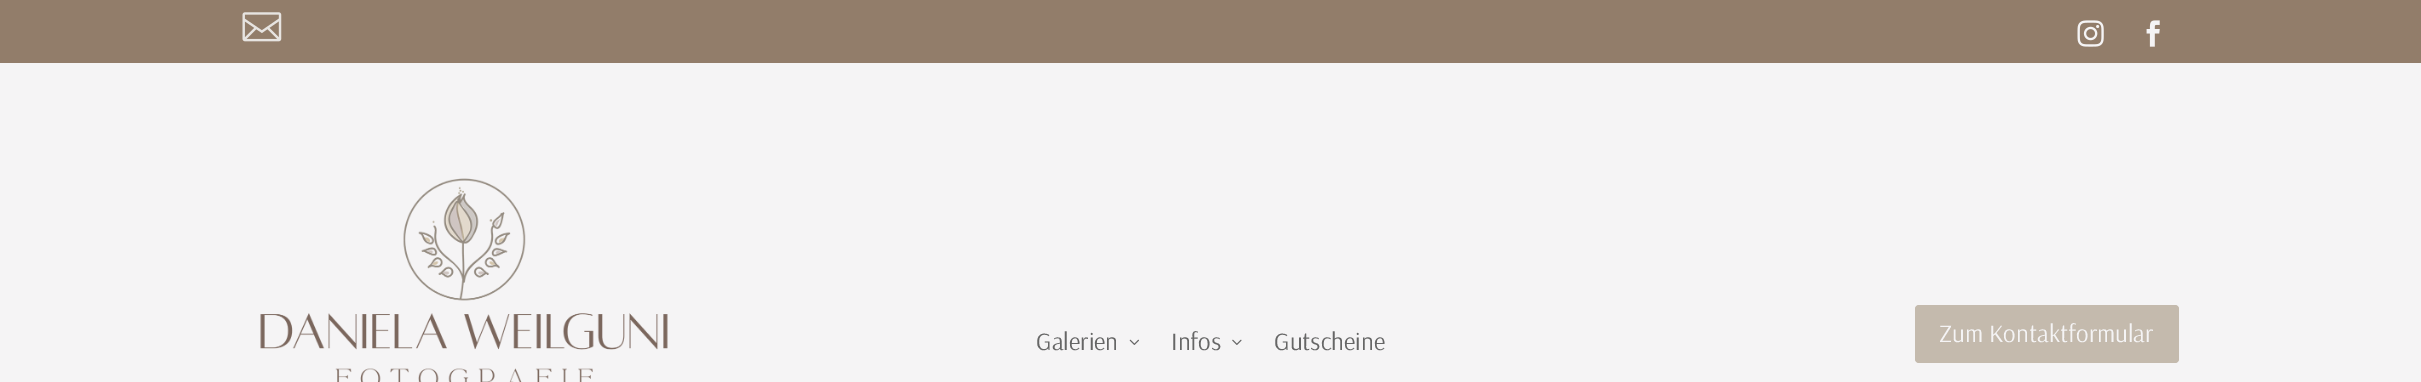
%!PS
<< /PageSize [2421 382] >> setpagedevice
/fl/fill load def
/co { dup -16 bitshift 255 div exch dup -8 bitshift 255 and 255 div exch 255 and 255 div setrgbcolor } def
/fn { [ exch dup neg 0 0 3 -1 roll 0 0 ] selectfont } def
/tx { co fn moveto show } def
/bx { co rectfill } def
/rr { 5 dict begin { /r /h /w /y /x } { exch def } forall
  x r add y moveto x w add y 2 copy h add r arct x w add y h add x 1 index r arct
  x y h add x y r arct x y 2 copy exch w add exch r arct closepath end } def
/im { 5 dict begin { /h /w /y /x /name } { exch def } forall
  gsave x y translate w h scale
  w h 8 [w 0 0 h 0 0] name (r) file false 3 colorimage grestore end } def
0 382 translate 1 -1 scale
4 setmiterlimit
0 0 2421 382 16#927D6A bx
(media/1.raw) 242 12 40 30 im
(media/2.raw) 2077 20 27 27 im
(media/3.raw) 2146 20 14 27 im
0 63 2421 319 16#F5F4F5 bx
(media/4.raw) 260 178 408 204 im
(media/5.raw) 1129 339 10 6 im
(media/6.raw) 1232 339 10 6 im
16#C4BAAD co
1915 305 264 58 4 rr fl
(Galerien) 1036 350 /Arsenal-Regular 25 16#666666 tx
(Infos) 1171 350 /Arsenal-Regular 25 16#666666 tx
(Gutscheine) 1274 350 /Arsenal-Regular 25 16#666666 tx
(Zum Kontaktformular) 1939 342 /Arsenal-Regular 25 16#F5F4F5 tx
showpage
